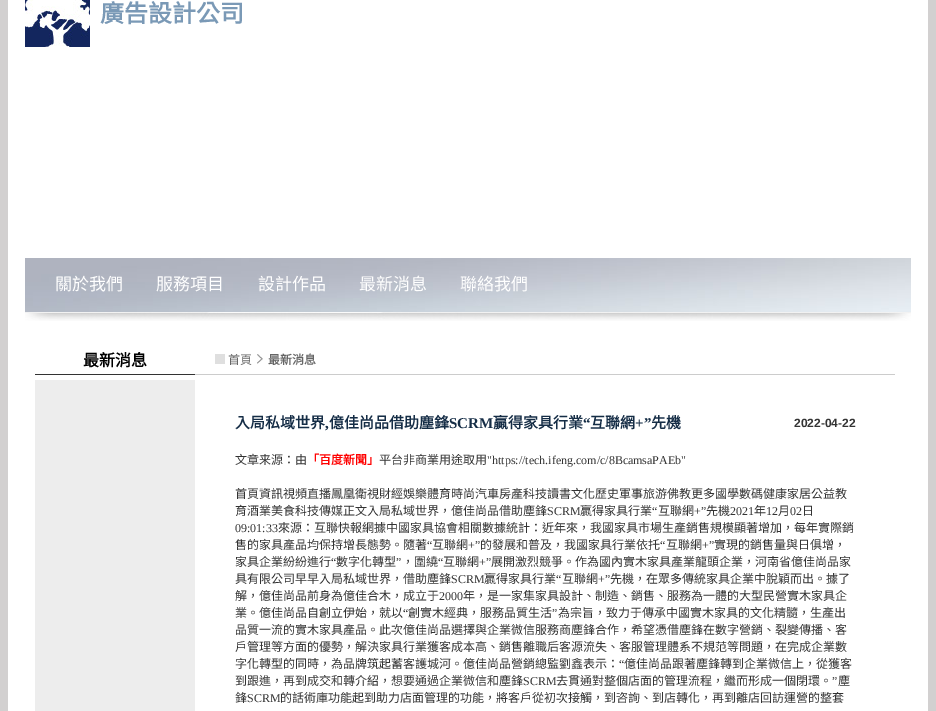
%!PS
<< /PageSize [936 711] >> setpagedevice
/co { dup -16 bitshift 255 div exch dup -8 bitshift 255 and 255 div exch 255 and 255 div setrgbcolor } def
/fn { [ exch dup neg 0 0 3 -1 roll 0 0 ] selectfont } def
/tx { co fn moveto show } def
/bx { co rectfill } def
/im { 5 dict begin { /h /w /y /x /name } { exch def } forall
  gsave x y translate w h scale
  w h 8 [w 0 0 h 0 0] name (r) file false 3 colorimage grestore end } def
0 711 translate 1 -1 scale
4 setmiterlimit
0 0 936 711 16#D2D0D0 bx
8 0 920 711 16#FFFFFF bx
(media/1.raw) 25 0 65 47 im
(media/2.raw) 25 258 886 54 im
(media/3.raw) 25 312 886 9 im
35 374 160 1 16#333333 bx
195 374 700 1 16#CCCCCC bx
215 354 10 10 16#DFDFDF bx
(media/4.raw) 257 354 6 10 im
35 380 160 331 16#EDEDED bx
(廣告設計公司) 100 22 /NotoSansCJKTC-Bold 24 16#7A99B6 tx
(關於我們) 55 290 /NotoSansCJKTC-Regular 17 16#FFFFFF tx
(服務項目) 156 290 /NotoSansCJKTC-Regular 17 16#FFFFFF tx
(設計作品) 258 290 /NotoSansCJKTC-Regular 17 16#FFFFFF tx
(最新消息) 359 290 /NotoSansCJKTC-Regular 17 16#FFFFFF tx
(聯絡我們) 460 290 /NotoSansCJKTC-Regular 17 16#FFFFFF tx
(最新消息) 83 366 /NotoSansCJKTC-Bold 16 16#000000 tx
(首頁) 228 364 /NotoSansCJKTC-Regular 12 16#666666 tx
(最新消息) 268 364 /NotoSansCJKTC-Bold 12 16#666666 tx
(入局私域世界) 235 428 /NotoSansCJKTC-Bold 15 16#152D46 tx
(億佳尚品借助塵鋒) 329 428 /NotoSansCJKTC-Bold 15 16#152D46 tx
(SCRM) 449 428 /LiberationSerif-Bold 15 16#152D46 tx
(贏得家具行業) 493 428 /NotoSansCJKTC-Bold 15 16#152D46 tx
(“) 583 428 /LiberationSerif-Bold 15 16#152D46 tx
(互聯網) 590 428 /NotoSansCJKTC-Bold 15 16#152D46 tx
(+”) 635 428 /LiberationSerif-Bold 15 16#152D46 tx
(先機) 651 428 /NotoSansCJKTC-Bold 15 16#152D46 tx
(,) 325 428 /LiberationSerif-Bold 15 16#152D46 tx
(2022-04-22) 794 427 /LiberationSans-Bold 12 16#333333 tx
(文章来源：由) 235 464 /NotoSansCJKTC-Regular 12 16#333333 tx
(「百度新聞」) 307 464 /NotoSansCJKTC-Bold 12 16#FF0000 tx
(平台非商業用途取用) 379 464 /NotoSansCJKTC-Regular 12 16#333333 tx
("https://tech.ifeng.com/c/8BcamsaPAEb") 487 464 /LiberationSerif-Regular 12 16#333333 tx
(首頁資訊視頻直播鳳凰衛視財經娛樂體育時尚汽車房產科技讀書文化歷史軍事旅游佛教更多國學數碼健康家居公益教) 235 498 /NotoSansCJKTC-Regular 12 16#333333 tx
(育酒業美食科技傳媒正文入局私域世界，億佳尚品借助塵鋒) 235 515 /NotoSansCJKTC-Regular 12 16#333333 tx
(SCRM) 547 515 /LiberationSerif-Regular 12 16#333333 tx
(贏得家具行業) 580 515 /NotoSansCJKTC-Regular 12 16#333333 tx
(“) 652 515 /LiberationSerif-Regular 12 16#333333 tx
(互聯網) 658 515 /NotoSansCJKTC-Regular 12 16#333333 tx
(+”) 694 515 /LiberationSerif-Regular 12 16#333333 tx
(先機) 706 515 /NotoSansCJKTC-Regular 12 16#333333 tx
(2021) 730 515 /LiberationSerif-Regular 12 16#333333 tx
(年) 754 515 /NotoSansCJKTC-Regular 12 16#333333 tx
(12) 766 515 /LiberationSerif-Regular 12 16#333333 tx
(月) 778 515 /NotoSansCJKTC-Regular 12 16#333333 tx
(02) 790 515 /LiberationSerif-Regular 12 16#333333 tx
(日) 802 515 /NotoSansCJKTC-Regular 12 16#333333 tx
(09:01:33) 235 532 /LiberationSerif-Regular 12 16#333333 tx
(來源：互聯快報網據中國家具協會相關數據統計：近年來，我國家具市場生產銷售規模顯著增加，每年實際銷) 278 532 /NotoSansCJKTC-Regular 12 16#333333 tx
(售的家具產品均保持增長態勢。隨著) 235 549 /NotoSansCJKTC-Regular 12 16#333333 tx
(“) 427 549 /LiberationSerif-Regular 12 16#333333 tx
(互聯網) 432 549 /NotoSansCJKTC-Regular 12 16#333333 tx
(+”) 468 549 /LiberationSerif-Regular 12 16#333333 tx
(的發展和普及，我國家具行業依托) 480 549 /NotoSansCJKTC-Regular 12 16#333333 tx
(“) 660 549 /LiberationSerif-Regular 12 16#333333 tx
(互聯網) 666 549 /NotoSansCJKTC-Regular 12 16#333333 tx
(+”) 702 549 /LiberationSerif-Regular 12 16#333333 tx
(實現的銷售量與日俱增，) 714 549 /NotoSansCJKTC-Regular 12 16#333333 tx
(家具企業紛紛進行) 235 566 /NotoSansCJKTC-Regular 12 16#333333 tx
(“) 331 566 /LiberationSerif-Regular 12 16#333333 tx
(數字化轉型) 336 566 /NotoSansCJKTC-Regular 12 16#333333 tx
(”) 396 566 /LiberationSerif-Regular 12 16#333333 tx
(，圍繞) 402 566 /NotoSansCJKTC-Regular 12 16#333333 tx
(“) 438 566 /LiberationSerif-Regular 12 16#333333 tx
(互聯網) 443 566 /NotoSansCJKTC-Regular 12 16#333333 tx
(+”) 479 566 /LiberationSerif-Regular 12 16#333333 tx
(展開激烈競爭。作為國內實木家具產業龍頭企業，河南省億佳尚品家) 491 566 /NotoSansCJKTC-Regular 12 16#333333 tx
(具有限公司早早入局私域世界，借助塵鋒) 235 583 /NotoSansCJKTC-Regular 12 16#333333 tx
(SCRM) 451 583 /LiberationSerif-Regular 12 16#333333 tx
(贏得家具行業) 484 583 /NotoSansCJKTC-Regular 12 16#333333 tx
(“) 556 583 /LiberationSerif-Regular 12 16#333333 tx
(互聯網) 562 583 /NotoSansCJKTC-Regular 12 16#333333 tx
(+”) 598 583 /LiberationSerif-Regular 12 16#333333 tx
(先機，在眾多傳統家具企業中脫穎而出。據了) 610 583 /NotoSansCJKTC-Regular 12 16#333333 tx
(解，億佳尚品前身為億佳合木，成立于) 235 600 /NotoSansCJKTC-Regular 12 16#333333 tx
(2000) 439 600 /LiberationSerif-Regular 12 16#333333 tx
(年，是一家集家具設計、制造、銷售、服務為一體的大型民營實木家具企) 463 600 /NotoSansCJKTC-Regular 12 16#333333 tx
(業。億佳尚品自創立伊始，就以) 235 617 /NotoSansCJKTC-Regular 12 16#333333 tx
(“) 403 617 /LiberationSerif-Regular 12 16#333333 tx
(創實木經典，服務品質生活) 408 617 /NotoSansCJKTC-Regular 12 16#333333 tx
(”) 552 617 /LiberationSerif-Regular 12 16#333333 tx
(為宗旨，致力于傳承中國實木家具的文化精髓，生產出) 558 617 /NotoSansCJKTC-Regular 12 16#333333 tx
(品質一流的實木家具產品。此次億佳尚品選擇與企業微信服務商塵鋒合作，希望憑借塵鋒在數字營銷、裂變傳播、客) 235 634 /NotoSansCJKTC-Regular 12 16#333333 tx
(戶管理等方面的優勢，解決家具行業獲客成本高、銷售離職后客源流失、客服管理體系不規范等問題，在完成企業數) 235 651 /NotoSansCJKTC-Regular 12 16#333333 tx
(字化轉型的同時，為品牌筑起蓄客護城河。億佳尚品營銷總監劉鑫表示：) 235 668 /NotoSansCJKTC-Regular 12 16#333333 tx
(“) 619 668 /LiberationSerif-Regular 12 16#333333 tx
(億佳尚品跟著塵鋒轉到企業微信上，從獲客) 624 668 /NotoSansCJKTC-Regular 12 16#333333 tx
(到跟進，再到成交和轉介紹，想要通過企業微信和塵鋒) 235 685 /NotoSansCJKTC-Regular 12 16#333333 tx
(SCRM) 523 685 /LiberationSerif-Regular 12 16#333333 tx
(去貫通對整個店面的管理流程，繼而形成一個閉環。) 556 685 /NotoSansCJKTC-Regular 12 16#333333 tx
(”) 832 685 /LiberationSerif-Regular 12 16#333333 tx
(塵) 838 685 /NotoSansCJKTC-Regular 12 16#333333 tx
(鋒) 235 702 /NotoSansCJKTC-Regular 12 16#333333 tx
(SCRM) 247 702 /LiberationSerif-Regular 12 16#333333 tx
(的話術庫功能起到助力店面管理的功能，將客戶從初次接觸，到咨詢、到店轉化，再到離店回訪運營的整套) 280 702 /NotoSansCJKTC-Regular 12 16#333333 tx
showpage
